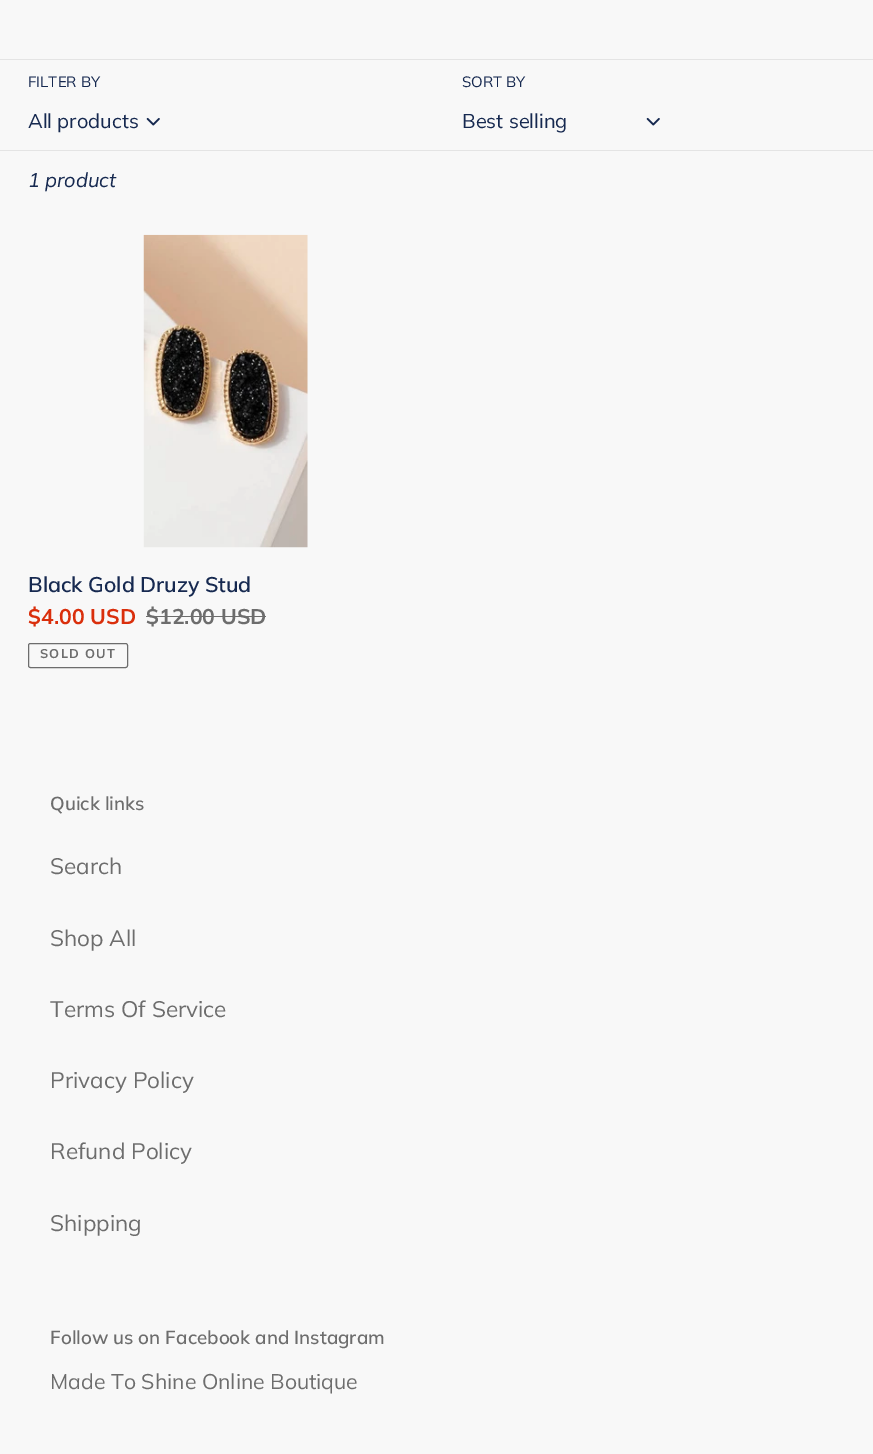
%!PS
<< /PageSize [873 1454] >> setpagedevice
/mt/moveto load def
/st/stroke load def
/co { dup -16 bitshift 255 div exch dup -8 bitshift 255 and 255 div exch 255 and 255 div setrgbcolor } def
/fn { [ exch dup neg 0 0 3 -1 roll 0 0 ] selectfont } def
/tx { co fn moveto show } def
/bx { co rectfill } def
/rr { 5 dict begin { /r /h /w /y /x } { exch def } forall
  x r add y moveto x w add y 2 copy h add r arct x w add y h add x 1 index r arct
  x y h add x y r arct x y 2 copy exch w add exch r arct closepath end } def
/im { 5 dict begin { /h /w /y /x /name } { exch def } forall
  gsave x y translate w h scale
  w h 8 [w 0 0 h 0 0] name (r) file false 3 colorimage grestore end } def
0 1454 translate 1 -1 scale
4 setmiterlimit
0 0 873 1454 16#F8F8F8 bx
0 59 873 1 16#E4E4E4 bx
(media/1.raw) 146 117 14 9 im
(media/1.raw) 646 117 14 9 im
0 150 873 1 16#E4E4E4 bx
(media/2.raw) 143 234 165 314 im
146 616 120 1 16#6D6D6D bx
28.5 643.5 99 24 2 rr st
(FILTER BY) 28 87 /Muli-Regular 15 16#162950 tx
(All products) 28 128 /Muli-Regular 20 16#162950 tx
(SORT BY) 462 87 /Muli-Regular 15 16#162950 tx
(Best selling) 462 128 /Muli-Regular 20 16#162950 tx
(1 product) 28 187 /Muli-Italic 20 16#162950 tx
(Black Gold Druzy Stud) 28 592 /Muli-SemiBold 21.25 16#162950 tx
($4.00 USD) 28 624 /Muli-Bold 21.25 16#DA2F0C tx
($12.00 USD) 146 624 /Muli-Bold 21.25 16#6D6D6D tx
/Muli-Bold 12.75 fn
40 658 mt 1.25 0 (SOLD OUT) ashow
(Quick links) 50 810 /Muli-SemiBold 18.75 16#6D6D6D tx
(Search) 50 874 /Muli-Regular 22.5 16#6D6D6D tx
(Shop All) 50 946 /Muli-Regular 22.5 16#6D6D6D tx
(Terms Of Service) 50 1017 /Muli-Regular 22.5 16#6D6D6D tx
(Privacy Policy) 50 1088 /Muli-Regular 22.5 16#6D6D6D tx
(Refund Policy) 50 1159 /Muli-Regular 22.5 16#6D6D6D tx
(Shipping) 50 1231 /Muli-Regular 22.5 16#6D6D6D tx
(Follow us on Facebook and Instagram) 50 1344 /Muli-SemiBold 18.75 16#6D6D6D tx
(Made To Shine Online Boutique) 50 1389 /Muli-Regular 21.25 16#6D6D6D tx
showpage
